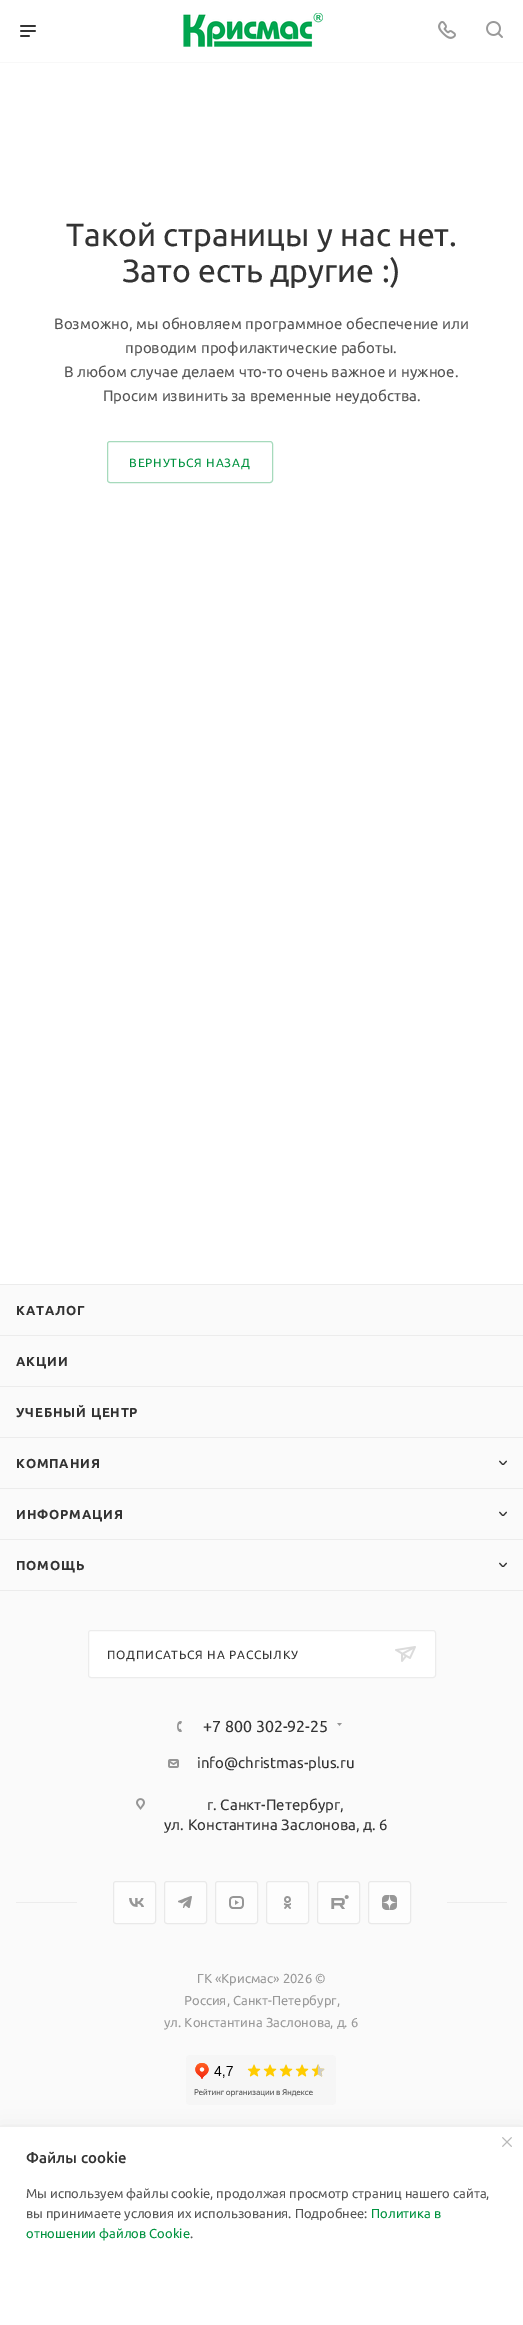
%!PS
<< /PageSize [523 2325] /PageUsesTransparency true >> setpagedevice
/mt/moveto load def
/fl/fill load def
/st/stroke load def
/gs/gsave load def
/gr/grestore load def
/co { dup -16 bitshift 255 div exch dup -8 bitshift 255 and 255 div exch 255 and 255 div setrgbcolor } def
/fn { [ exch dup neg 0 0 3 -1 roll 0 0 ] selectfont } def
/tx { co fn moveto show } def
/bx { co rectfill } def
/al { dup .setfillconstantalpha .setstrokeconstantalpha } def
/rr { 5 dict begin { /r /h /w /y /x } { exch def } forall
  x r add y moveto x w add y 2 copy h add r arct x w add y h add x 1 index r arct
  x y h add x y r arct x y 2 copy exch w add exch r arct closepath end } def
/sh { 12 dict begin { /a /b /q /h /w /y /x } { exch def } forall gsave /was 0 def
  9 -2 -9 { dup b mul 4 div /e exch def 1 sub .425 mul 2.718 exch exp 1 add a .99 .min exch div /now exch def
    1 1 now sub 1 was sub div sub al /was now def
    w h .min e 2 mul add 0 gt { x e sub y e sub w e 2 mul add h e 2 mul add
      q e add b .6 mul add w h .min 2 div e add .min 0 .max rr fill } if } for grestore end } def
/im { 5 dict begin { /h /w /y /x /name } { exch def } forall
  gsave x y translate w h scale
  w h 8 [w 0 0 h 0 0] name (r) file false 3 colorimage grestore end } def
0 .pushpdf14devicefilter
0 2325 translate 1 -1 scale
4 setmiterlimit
0 0 523 2325 16#FFFFFF bx
0 62 523 1 16#F8F8F8 bx
(media/1.raw) 20 25 16 12 im
(media/2.raw) 183 13 140 34 im
(media/3.raw) 438 21 18 18 im
(media/4.raw) 486 21 17 17 im
16#A6DABC co
107.5 441.5 165 41 2.5 rr st
0 1285 523 842 16#FAFAFA bx
0 1284 523 1 16#ECECEC bx
0 1335 523 1 16#ECECEC bx
0 1386 523 1 16#ECECEC bx
0 1437 523 1 16#ECECEC bx
0 1488 523 1 16#ECECEC bx
(media/5.raw) 499 1460 8 5 im
0 1539 523 1 16#ECECEC bx
(media/6.raw) 499 1511 8 5 im
0 1590 523 1 16#ECECEC bx
(media/7.raw) 499 1562 8 5 im
16#FFFFFF co
88.5 1630.5 347 47 2.5 rr gs fl gr
16#ECECEC co
st
(media/8.raw) 395 1646 21 16 im
(media/9.raw) 177 1721 5 11 im
(media/10.raw) 337 1723 5 3 im
(media/11.raw) 168 1759 11 9 im
(media/12.raw) 136 1798 9 12 im
16 1902 491 1 16#ECECEC bx
77 1902 370 1 16#FAFAFA bx
16#FDFDFD co
113 1881 43 43 3 rr fl
(media/13.raw) 129 1898 15 9 im
16#E9E9E9 co
113.5 1881.5 42 42 2.5 rr st
16#FDFDFD co
164 1881 43 43 3 rr fl
(media/14.raw) 178 1896 14 12 im
16#E9E9E9 co
164.5 1881.5 42 42 2.5 rr st
16#FDFDFD co
215 1881 43 43 3 rr fl
(media/15.raw) 229 1896 15 13 im
16#E9E9E9 co
215.5 1881.5 42 42 2.5 rr st
16#FDFDFD co
266 1881 43 43 3 rr fl
(media/16.raw) 283 1896 8 13 im
16#E9E9E9 co
266.5 1881.5 42 42 2.5 rr st
16#FDFDFD co
317 1881 43 43 3 rr fl
(media/17.raw) 331 1895 18 14 im
16#E9E9E9 co
317.5 1881.5 42 42 2.5 rr st
16#FDFDFD co
368 1881 43 43 3 rr fl
(media/18.raw) 382 1895 15 15 im
16#E9E9E9 co
368.5 1881.5 42 42 2.5 rr st
(media/19.raw) 186 2055 150 50 im
16#000000 co
0 2132 523 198 0 10 .12 sh
0 2127 523 198 16#FFFFFF bx
(media/20.raw) 502 2137 10 10 im
(Такой страницы у нас нет.) 66 246 /Ubuntu-Regular 32 16#333333 tx
(Зато есть другие :\)) 122 282 /Ubuntu-Regular 32 16#333333 tx
(Возможно, мы обновляем программное обеспечение или) 54 329 /Ubuntu-Regular 15 16#555555 tx
(проводим профилактические работы.) 125 353 /Ubuntu-Regular 15 16#555555 tx
(В любом случае делаем что-то очень важное и нужное.) 64 377 /Ubuntu-Regular 15 16#555555 tx
(Просим извинить за временные неудобства.) 103 401 /Ubuntu-Regular 15 16#555555 tx
/Ubuntu-Regular 12 fn
16#00923F co
129 467 mt .8 0 (ВЕРНУТЬСЯ НАЗАД) ashow
/Ubuntu-Bold 13 fn
16#333333 co
16 1315 mt .8 0 (КАТАЛОГ) ashow
16 1366 mt .8 0 (АКЦИИ) ashow
16 1417 mt .8 0 (УЧЕБНЫЙ ЦЕНТР) ashow
16 1468 mt .8 0 (КОМПАНИЯ) ashow
16 1519 mt .8 0 (ИНФОРМАЦИЯ) ashow
16 1570 mt .8 0 (ПОМОЩЬ) ashow
/Ubuntu-Regular 12 fn
107 1659 mt .8 0 (ПОДПИСАТЬСЯ НА РАССЫЛКУ) ashow
(+7 800 302-92-25) 203 1732 /Ubuntu-Regular 16 16#333333 tx
(info@christmas-plus.ru) 197 1768 /Ubuntu-Regular 15 16#333333 tx
(г. Санкт-Петербург,) 207 1810 /Ubuntu-Regular 15 16#333333 tx
(ул. Константина Заслонова, д. 6) 164 1830 /Ubuntu-Regular 15 16#333333 tx
(ГК «Крисмас» 2026 ©) 197 1983 /Ubuntu-Regular 13 16#999999 tx
(Россия, Санкт-Петербург,) 184 2005 /Ubuntu-Regular 13 16#999999 tx
(ул. Константина Заслонова, д. 6) 164 2027 /Ubuntu-Regular 13 16#999999 tx
(Файлы cookie) 26 2163 /Ubuntu-Medium 15 16#333333 tx
(Мы используем файлы cookie, продолжая просмотр страниц нашего сайта,) 26 2198 /Ubuntu-Regular 13 16#555555 tx
(вы принимаете условия их использования. Подробнее:) 26 2218 /Ubuntu-Regular 13 16#555555 tx
(Политика в) 371 2218 /Ubuntu-Regular 13 16#00923F tx
(отношении файлов Cookie) 26 2238 /Ubuntu-Regular 13 16#00923F tx
(.) 190 2238 /Ubuntu-Regular 13 16#555555 tx
.poppdf14devicefilter showpage
